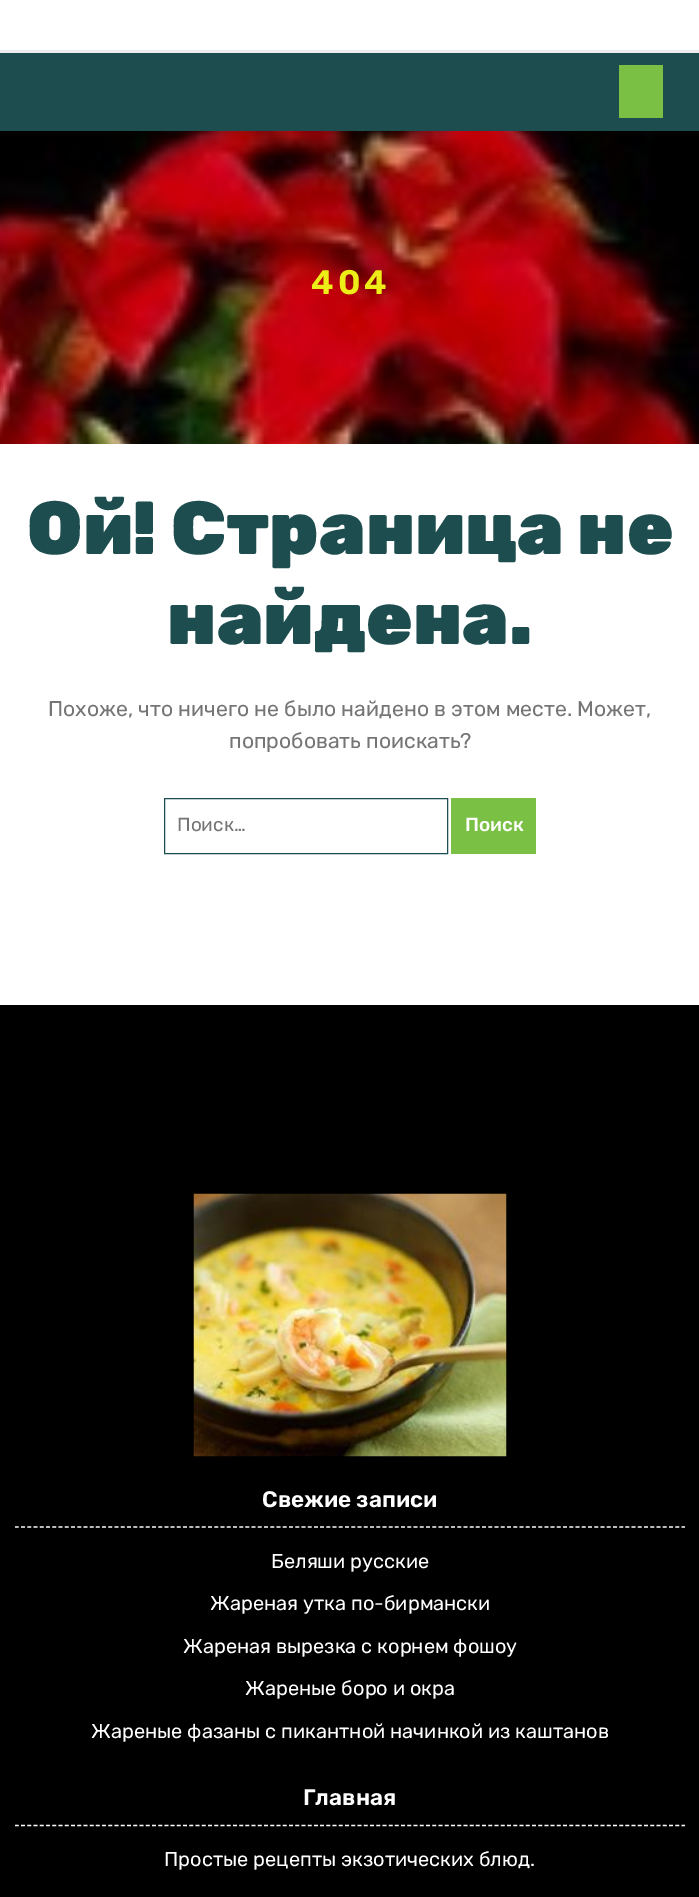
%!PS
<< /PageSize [699 1897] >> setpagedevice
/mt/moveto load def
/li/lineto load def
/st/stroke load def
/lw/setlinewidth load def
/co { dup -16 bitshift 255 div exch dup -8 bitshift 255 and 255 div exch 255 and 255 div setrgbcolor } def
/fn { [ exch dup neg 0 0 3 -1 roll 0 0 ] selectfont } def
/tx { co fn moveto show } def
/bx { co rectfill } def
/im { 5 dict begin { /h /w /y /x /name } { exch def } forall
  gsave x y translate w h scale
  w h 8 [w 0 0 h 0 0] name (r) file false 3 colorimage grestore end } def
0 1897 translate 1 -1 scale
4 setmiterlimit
0 0 699 1897 16#FFFFFF bx
0 50 699 3 16#ECECEC bx
0 53 699 78 16#1D4D4F bx
619 65 44 53 16#7AC044 bx
(media/1.raw) 0 131 699 313 im
16#1D4D4F co
164.5 798.5 283 55 rectstroke
451 798 85 56 16#7AC044 bx
0 1005 699 892 16#000000 bx
(media/2.raw) 193 1193 314 264 im
16#FFFFFF co
1.2 lw
[3.75 2.48] 0 setdash
15 1527 mt 685 1527 li st
15 1825.5 mt 685 1825.5 li st
/Rubik-SemiBold 34 fn
16#EDED17 co
311 294 mt 4 0 (404) ashow
(Ой! Страница не) 27 554 /Rubik-Black 75 16#1D4D4F tx
(найдена.) 167 644 /Rubik-Black 75 16#1D4D4F tx
(Похоже, что ничего не было найдено в этом месте. Может,) 48 716 /Rubik-Regular 21.25 16#757575 tx
(попробовать поискать?) 229 748 /Rubik-Regular 21.25 16#757575 tx
(Поиск…) 177 831 /Rubik-Regular 19 16#757575 tx
(Поиск) 465 831 /Rubik-Medium 19 16#FFFFFF tx
(Свежие записи) 262 1507 /Rubik-SemiBold 22.5 16#FFFFFF tx
(Беляши русские) 271 1568 /Rubik-Regular 20 16#FFFFFF tx
(Жареная утка по-бирмански) 210 1610 /Rubik-Regular 20 16#FFFFFF tx
(Жареная вырезка с корнем фошоу) 183 1653 /Rubik-Regular 20 16#FFFFFF tx
(Жареные боро и окра) 245 1695 /Rubik-Regular 20 16#FFFFFF tx
(Жареные фазаны с пикантной начинкой из каштанов) 91 1738 /Rubik-Regular 20 16#FFFFFF tx
(Главная) 303 1805 /Rubik-SemiBold 22.5 16#FFFFFF tx
(Простые рецепты экзотических блюд.) 164 1866 /Rubik-Regular 20 16#FFFFFF tx
showpage
